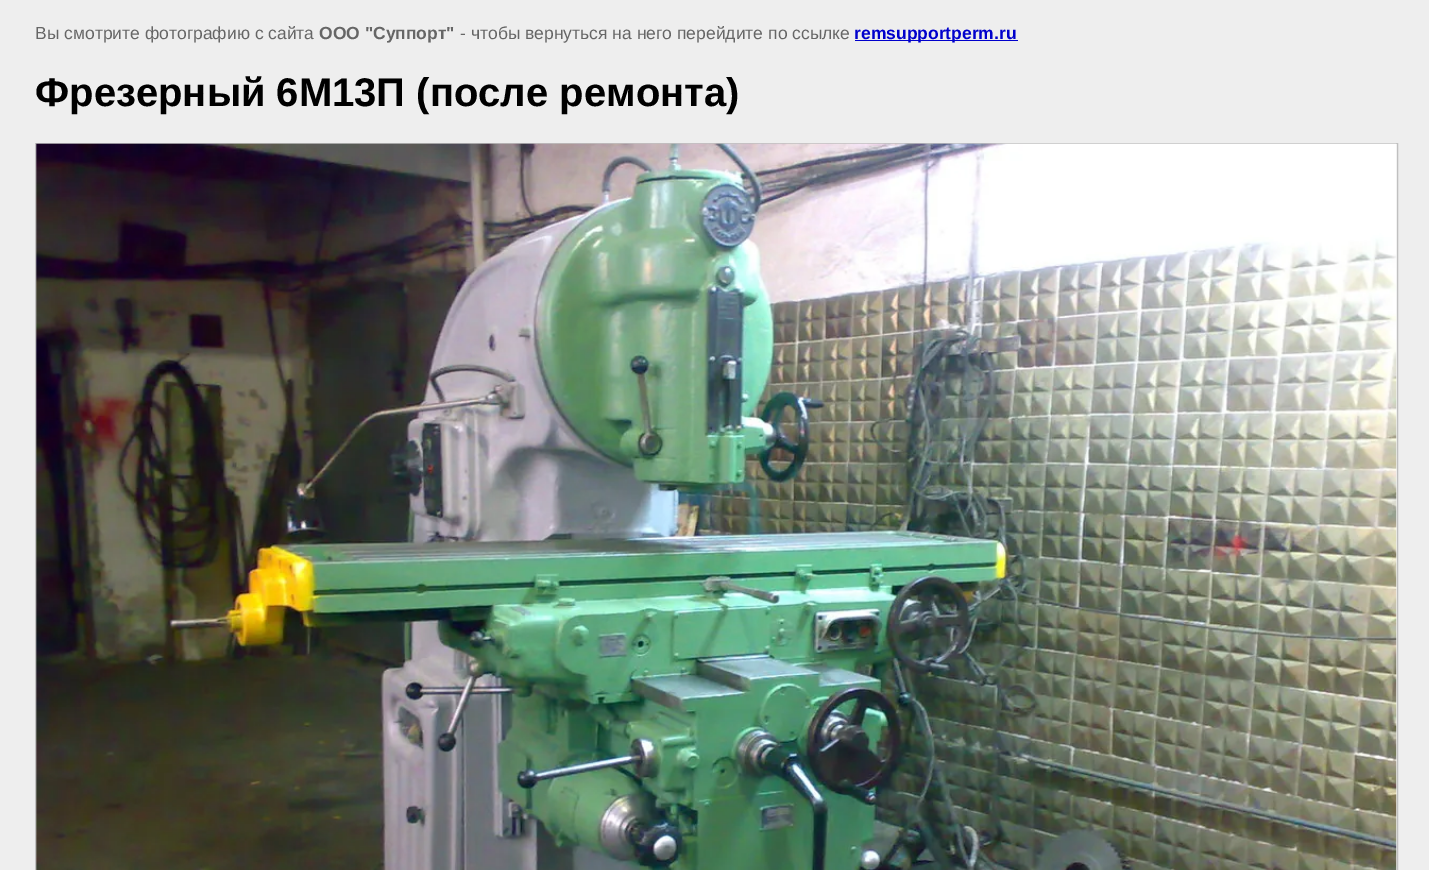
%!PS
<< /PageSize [1429 870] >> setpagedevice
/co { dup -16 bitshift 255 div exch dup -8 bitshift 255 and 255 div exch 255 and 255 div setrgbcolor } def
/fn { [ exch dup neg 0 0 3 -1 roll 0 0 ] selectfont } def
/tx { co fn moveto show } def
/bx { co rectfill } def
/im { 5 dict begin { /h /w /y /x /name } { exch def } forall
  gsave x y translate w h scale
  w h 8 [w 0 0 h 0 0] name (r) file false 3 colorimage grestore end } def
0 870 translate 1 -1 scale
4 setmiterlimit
0 0 1429 870 16#EEEEEE bx
855 40 163 1 16#0000CC bx
16#C0C0C0 co
35.5 143.5 1362 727 rectstroke
(media/1.raw) 36 143 1361 727 im
(Вы смотрите фотографию с сайта) 35 39 /LiberationSans-Regular 17.5 16#666666 tx
(ООО "Суппорт") 319 39 /LiberationSans-Bold 17.5 16#666666 tx
(- чтобы вернуться на него перейдите по ссылке) 460 39 /LiberationSans-Regular 17.5 16#666666 tx
(remsupportperm.ru) 854 39 /LiberationSans-Bold 17.5 16#0000CC tx
(Фрезерный 6М13П \(после ремонта\)) 35 106 /LiberationSans-Bold 40 16#000000 tx
showpage
